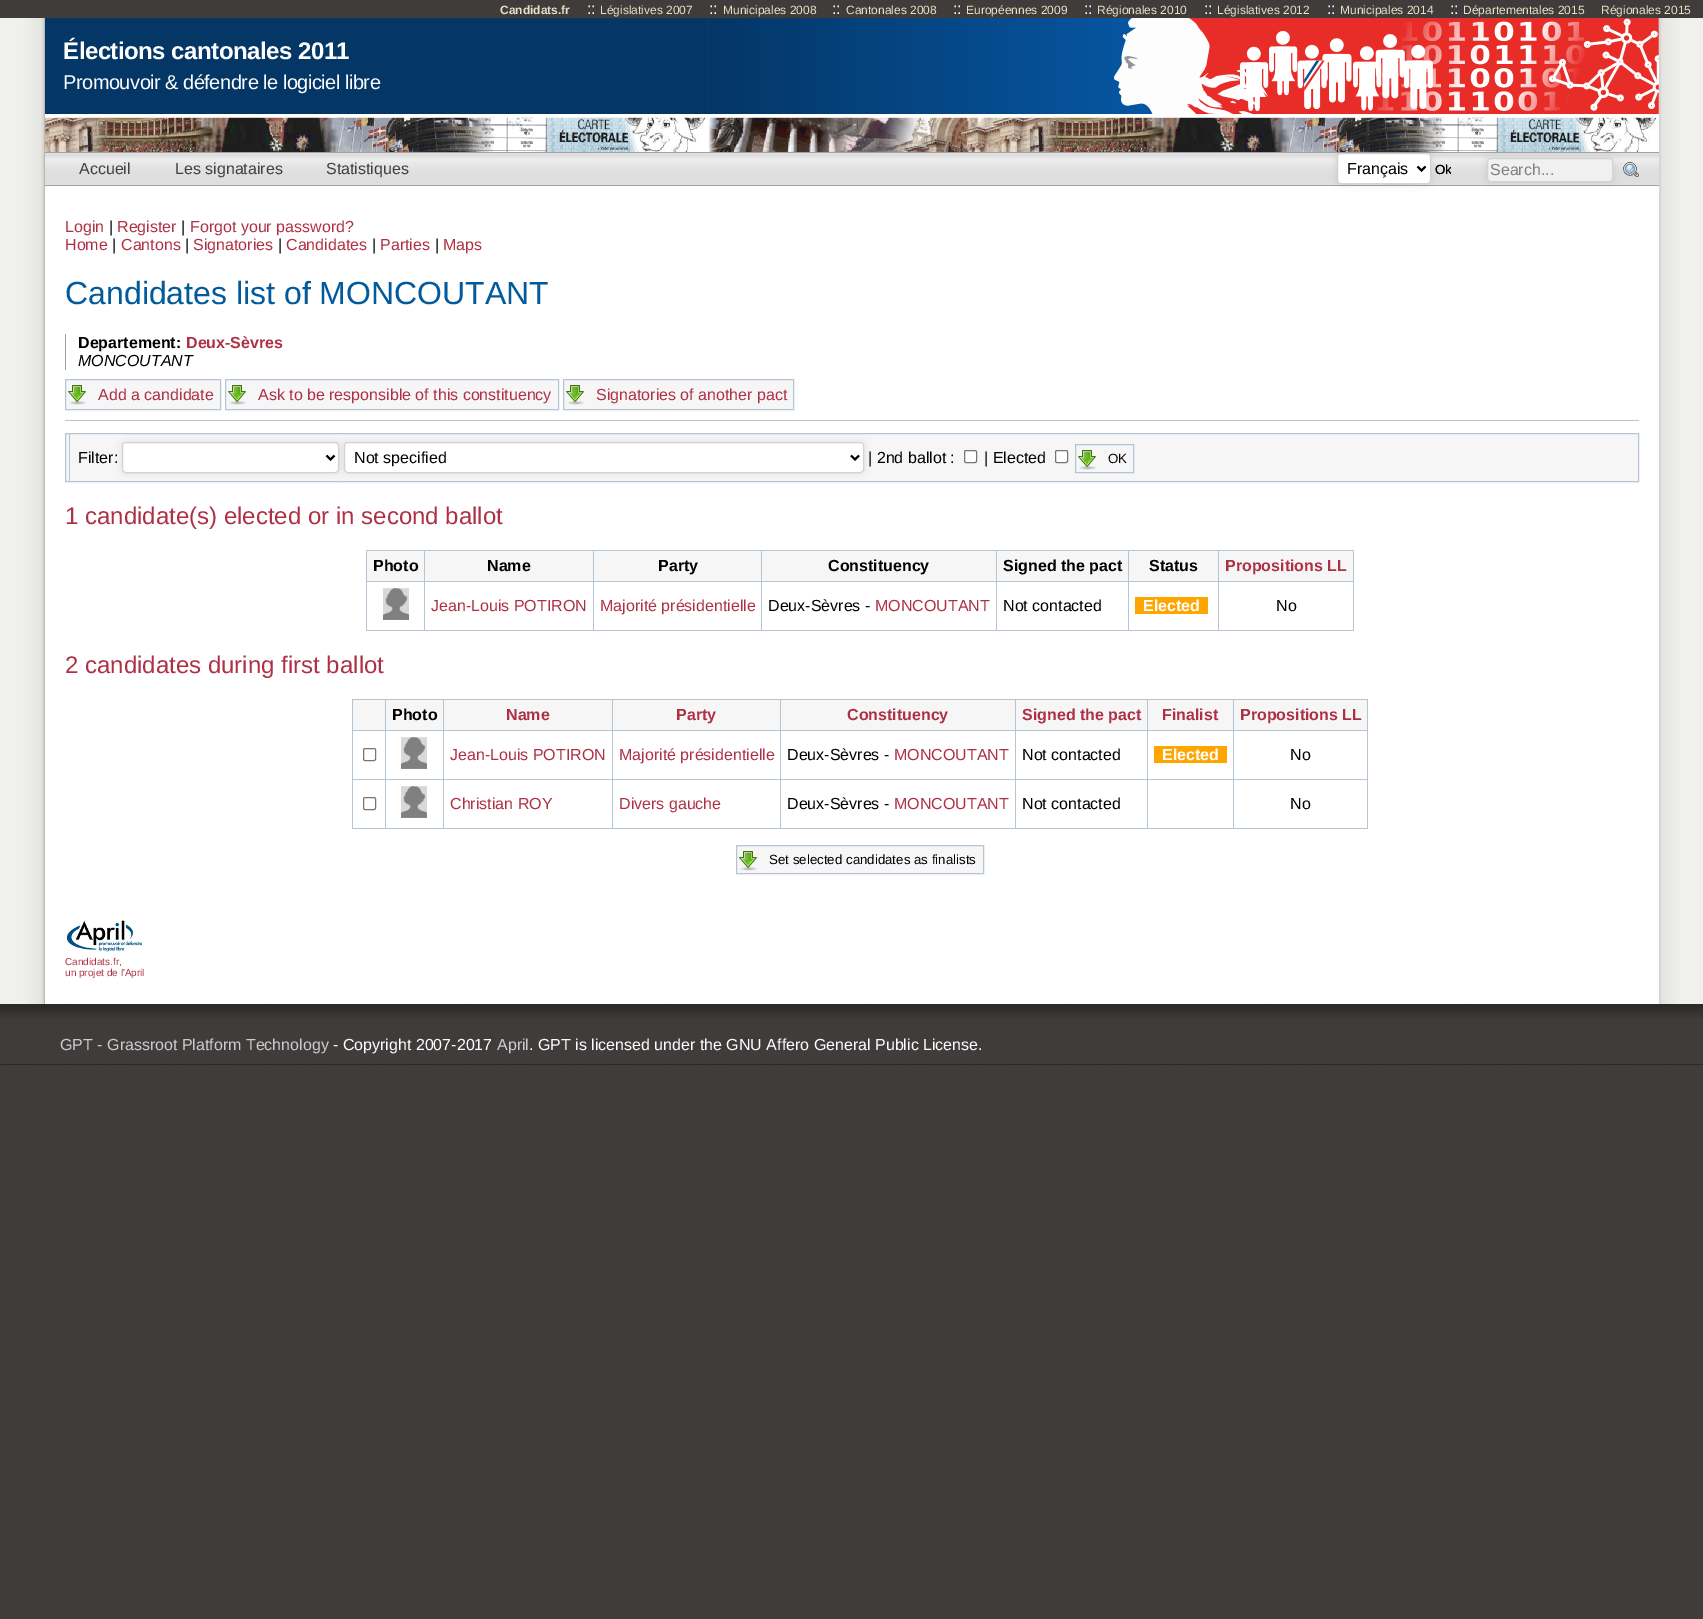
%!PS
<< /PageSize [1703 1619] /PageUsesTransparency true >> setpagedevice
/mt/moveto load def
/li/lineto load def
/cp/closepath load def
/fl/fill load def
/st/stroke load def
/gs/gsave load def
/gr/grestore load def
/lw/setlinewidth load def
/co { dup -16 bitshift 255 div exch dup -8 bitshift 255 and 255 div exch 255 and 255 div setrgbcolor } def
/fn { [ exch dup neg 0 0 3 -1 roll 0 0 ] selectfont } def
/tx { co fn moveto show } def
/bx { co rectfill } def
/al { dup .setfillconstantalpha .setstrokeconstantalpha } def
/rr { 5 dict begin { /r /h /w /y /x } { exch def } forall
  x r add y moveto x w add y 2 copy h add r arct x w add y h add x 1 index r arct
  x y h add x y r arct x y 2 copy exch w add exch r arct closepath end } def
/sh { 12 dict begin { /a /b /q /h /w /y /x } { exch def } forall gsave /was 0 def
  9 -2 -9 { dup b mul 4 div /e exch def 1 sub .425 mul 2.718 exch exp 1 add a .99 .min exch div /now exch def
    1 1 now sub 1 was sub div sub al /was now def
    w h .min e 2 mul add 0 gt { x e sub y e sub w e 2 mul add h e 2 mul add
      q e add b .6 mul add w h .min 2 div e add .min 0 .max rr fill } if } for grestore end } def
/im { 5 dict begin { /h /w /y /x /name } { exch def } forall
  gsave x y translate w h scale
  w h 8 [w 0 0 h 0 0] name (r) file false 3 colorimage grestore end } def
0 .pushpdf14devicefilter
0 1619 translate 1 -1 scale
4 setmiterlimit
0 0 1703 1619 16#413C3C bx
(media/1.raw) 0 18 45 986 im
(media/2.raw) 1659 18 44 986 im
45 186 1614 818 16#FFFFFF bx
45 18 663 96 16#043666 bx
(media/3.raw) 708 18 951 96 im
(media/4.raw) 45 114 1614 38 im
45 153 1614 3 16#DEDEDE bx
(media/5.raw) 45 156 1614 29 im
45 152 1614 1 16#A3A3A3 bx
45 185 1614 1 16#A3A3A3 bx
16#000000 co
1337 153 94 31 4 4 .1 sh
16#FFFFFF co
1337.5 153.5 93 30 3.5 rr gs fl gr
16#D3D3D3 co
st
16#000000 co
2 lw
1417.5 166.5 mt 1421.5 170.5 li 1425.5 166.5 li st
(media/6.raw) 1435 165 16 9 im
1487 158 126 24 4 4 .1 sh
16#F0F0F0 co
1487.5 158.5 125 23 3.5 rr gs fl gr
16#D3D3D3 co
1 lw
st
(media/7.raw) 1623 162 16 15 im
65 334 1 36 16#9E9E9E bx
66 380 154 29 16#F6F6F6 bx
(media/8.raw) 68 385 18 20 im
16#B5C5D4 co
65.5 379.5 155 30 rectstroke
226 380 332 29 16#F6F6F6 bx
(media/8.raw) 228 385 18 20 im
16#B5C5D4 co
225.5 379.5 333 30 rectstroke
564 380 229 29 16#F6F6F6 bx
(media/8.raw) 566 385 18 20 im
16#B5C5D4 co
563.5 379.5 230 30 rectstroke
65 420 1574 1 16#B5C5D4 bx
16#F6F6F6 co
65.5 433.5 mt 1638.5 433.5 li 1638.5 481.5 li 65.5 481.5 li cp gs fl gr
16#B5C5D4 co
st
69 434 1 47 16#B5C5D4 bx
16#000000 co
122 442 217 31 4 4 .1 sh
16#FFFFFF co
122.5 442.5 216 30 3.5 rr gs fl gr
16#D3D3D3 co
st
16#000000 co
2 lw
326.5 455.5 mt 330.5 459.5 li 334.5 455.5 li st
344 442 520 31 4 4 .1 sh
16#FFFFFF co
344.5 442.5 519 30 3.5 rr gs fl gr
16#D3D3D3 co
1 lw
st
16#000000 co
2 lw
851 455.5 mt 855 459.5 li 859 455.5 li st
16#FFFFFF co
964.5 450.5 12 12 1.5 rr gs fl gr
16#767676 co
1 lw
st
16#FFFFFF co
1055.5 450.5 12 12 1.5 rr gs fl gr
16#767676 co
st
(media/8.raw) 1078 450 18 20 im
16#B5C5D4 co
1075.5 444.5 58 28 rectstroke
367 551 57 30 16#F6F6F6 bx
1218 550 136 1 16#B5C5D4 bx
1218 581 136 1 16#B5C5D4 bx
1353 581 1 50 16#B5C5D4 bx
1218 630 136 1 16#B5C5D4 bx
1218 581 1 50 16#B5C5D4 bx
1128 581 91 1 16#B5C5D4 bx
1218 550 1 32 16#B5C5D4 bx
1128 550 91 1 16#B5C5D4 bx
1128 630 91 1 16#B5C5D4 bx
1128 581 1 50 16#B5C5D4 bx
996 581 133 1 16#B5C5D4 bx
1128 550 1 32 16#B5C5D4 bx
996 550 133 1 16#B5C5D4 bx
996 630 133 1 16#B5C5D4 bx
996 581 1 50 16#B5C5D4 bx
761 581 236 1 16#B5C5D4 bx
996 550 1 32 16#B5C5D4 bx
761 550 236 1 16#B5C5D4 bx
761 630 236 1 16#B5C5D4 bx
761 581 1 50 16#B5C5D4 bx
593 581 169 1 16#B5C5D4 bx
761 550 1 32 16#B5C5D4 bx
593 550 169 1 16#B5C5D4 bx
593 630 169 1 16#B5C5D4 bx
593 581 1 50 16#B5C5D4 bx
424 581 170 1 16#B5C5D4 bx
593 550 1 32 16#B5C5D4 bx
424 550 170 1 16#B5C5D4 bx
424 630 170 1 16#B5C5D4 bx
424 581 1 50 16#B5C5D4 bx
366 581 59 1 16#B5C5D4 bx
424 550 1 32 16#B5C5D4 bx
366 550 59 1 16#B5C5D4 bx
366 630 59 1 16#B5C5D4 bx
366 581 1 50 16#B5C5D4 bx
366 550 1 32 16#B5C5D4 bx
425 551 168 30 16#F6F6F6 bx
594 551 167 30 16#F6F6F6 bx
762 551 234 30 16#F6F6F6 bx
997 551 131 30 16#F6F6F6 bx
1129 551 89 30 16#F6F6F6 bx
1219 551 134 30 16#F6F6F6 bx
1353 550 1 32 16#B5C5D4 bx
(media/9.raw) 383 588 26 32 im
1135 597 73 17 16#FFA500 bx
353 700 32 30 16#F6F6F6 bx
1233 699 135 1 16#B5C5D4 bx
1233 730 135 1 16#B5C5D4 bx
1233 779 135 1 16#B5C5D4 bx
1367 779 1 50 16#B5C5D4 bx
1233 828 135 1 16#B5C5D4 bx
1233 779 1 50 16#B5C5D4 bx
1147 779 87 1 16#B5C5D4 bx
1233 730 1 50 16#B5C5D4 bx
1147 730 87 1 16#B5C5D4 bx
1233 699 1 32 16#B5C5D4 bx
1147 699 87 1 16#B5C5D4 bx
1147 828 87 1 16#B5C5D4 bx
1147 779 1 50 16#B5C5D4 bx
1015 779 133 1 16#B5C5D4 bx
1147 730 1 50 16#B5C5D4 bx
1015 730 133 1 16#B5C5D4 bx
1147 699 1 32 16#B5C5D4 bx
1015 699 133 1 16#B5C5D4 bx
1015 828 133 1 16#B5C5D4 bx
1015 779 1 50 16#B5C5D4 bx
780 779 236 1 16#B5C5D4 bx
1015 730 1 50 16#B5C5D4 bx
780 730 236 1 16#B5C5D4 bx
1015 699 1 32 16#B5C5D4 bx
780 699 236 1 16#B5C5D4 bx
780 828 236 1 16#B5C5D4 bx
780 779 1 50 16#B5C5D4 bx
612 779 169 1 16#B5C5D4 bx
780 730 1 50 16#B5C5D4 bx
612 730 169 1 16#B5C5D4 bx
780 699 1 32 16#B5C5D4 bx
612 699 169 1 16#B5C5D4 bx
612 828 169 1 16#B5C5D4 bx
612 779 1 50 16#B5C5D4 bx
443 779 170 1 16#B5C5D4 bx
612 730 1 50 16#B5C5D4 bx
443 730 170 1 16#B5C5D4 bx
612 699 1 32 16#B5C5D4 bx
443 699 170 1 16#B5C5D4 bx
443 828 170 1 16#B5C5D4 bx
443 779 1 50 16#B5C5D4 bx
385 779 59 1 16#B5C5D4 bx
443 730 1 50 16#B5C5D4 bx
385 730 59 1 16#B5C5D4 bx
443 699 1 32 16#B5C5D4 bx
385 699 59 1 16#B5C5D4 bx
385 828 59 1 16#B5C5D4 bx
385 779 1 50 16#B5C5D4 bx
352 779 34 1 16#B5C5D4 bx
385 730 1 50 16#B5C5D4 bx
352 730 34 1 16#B5C5D4 bx
385 699 1 32 16#B5C5D4 bx
352 699 34 1 16#B5C5D4 bx
352 828 34 1 16#B5C5D4 bx
352 779 1 50 16#B5C5D4 bx
352 730 1 50 16#B5C5D4 bx
352 699 1 32 16#B5C5D4 bx
386 700 57 30 16#F6F6F6 bx
444 700 168 30 16#F6F6F6 bx
613 700 167 30 16#F6F6F6 bx
781 700 234 30 16#F6F6F6 bx
1016 700 131 30 16#F6F6F6 bx
1148 700 85 30 16#F6F6F6 bx
1234 700 133 30 16#F6F6F6 bx
1367 730 1 50 16#B5C5D4 bx
1367 699 1 32 16#B5C5D4 bx
16#767676 co
363.5 748.5 12 12 1.5 rr st
(media/9.raw) 401 737 26 32 im
1154 746 73 17 16#FFA500 bx
16#767676 co
363.5 797.5 12 12 1.5 rr st
(media/9.raw) 401 786 26 32 im
737 846 246 27 16#F6F6F6 bx
(media/8.raw) 739 851 18 20 im
16#B5C5D4 co
736.5 845.5 247 28 rectstroke
(media/10.raw) 66 920 76 32 im
(media/11.raw) 0 1004 1703 61 im
(Candidats.fr) 500 14 /LiberationSans-Bold 12 16#E9DFC6 tx
(::) 587 14 /LiberationSans-Regular 16 16#FFFFFF tx
(Législatives 2007) 600 14 /LiberationSans-Regular 12 16#E9DFC6 tx
(::) 709 14 /LiberationSans-Regular 16 16#FFFFFF tx
(Municipales 2008) 723 14 /LiberationSans-Regular 12 16#E9DFC6 tx
(::) 832 14 /LiberationSans-Regular 16 16#FFFFFF tx
(Cantonales 2008) 846 14 /LiberationSans-Regular 12 16#E9DFC6 tx
(::) 953 14 /LiberationSans-Regular 16 16#FFFFFF tx
(Européennes 2009) 966 14 /LiberationSans-Regular 12 16#E9DFC6 tx
(::) 1084 14 /LiberationSans-Regular 16 16#FFFFFF tx
(Régionales 2010) 1097 14 /LiberationSans-Regular 12 16#E9DFC6 tx
(::) 1204 14 /LiberationSans-Regular 16 16#FFFFFF tx
(Législatives 2012) 1217 14 /LiberationSans-Regular 12 16#E9DFC6 tx
(::) 1327 14 /LiberationSans-Regular 16 16#FFFFFF tx
(Municipales 2014) 1340 14 /LiberationSans-Regular 12 16#E9DFC6 tx
(::) 1450 14 /LiberationSans-Regular 16 16#FFFFFF tx
(Départementales 2015) 1463 14 /LiberationSans-Regular 12 16#E9DFC6 tx
(Régionales 2015) 1601 14 /LiberationSans-Regular 12 16#E9DFC6 tx
/LiberationSans-Bold 24 fn
16#FFFFFF co
63 59 mt -.5 0 (Élections cantonales 2011) ashow
/LiberationSans-Regular 20 fn
63 89 mt -.5 0 (Promouvoir & défendre le logiciel libre) ashow
(Accueil) 79 174 /LiberationSans-Regular 16 16#404040 tx
(Les signataires) 175 174 /LiberationSans-Regular 16 16#404040 tx
(Statistiques) 326 174 /LiberationSans-Regular 16 16#404040 tx
(Français) 1347 174 /LiberationSans-Regular 16 16#000000 tx
gs
1435 162 16 16 rectclip
(Ok) 1435 174 /LiberationSans-Regular 13.3 16#000000 tx
gr
(Search...) 1490 175 /LiberationSans-Regular 16 16#808080 tx
(Login) 65 232 /LiberationSans-Regular 16 16#AE3045 tx
(|) 109 232 /LiberationSans-Regular 16 16#000000 tx
(Register) 117 232 /LiberationSans-Regular 16 16#AE3045 tx
(|) 181 232 /LiberationSans-Regular 16 16#000000 tx
(Forgot your password?) 190 232 /LiberationSans-Regular 16 16#AE3045 tx
(Home) 65 250 /LiberationSans-Regular 16 16#AE3045 tx
(|) 112 250 /LiberationSans-Regular 16 16#000000 tx
(Cantons) 121 250 /LiberationSans-Regular 16 16#AE3045 tx
(|) 185 250 /LiberationSans-Regular 16 16#000000 tx
(Signatories) 193 250 /LiberationSans-Regular 16 16#AE3045 tx
(|) 278 250 /LiberationSans-Regular 16 16#000000 tx
(Candidates) 286 250 /LiberationSans-Regular 16 16#AE3045 tx
(|) 372 250 /LiberationSans-Regular 16 16#000000 tx
(Parties) 380 250 /LiberationSans-Regular 16 16#AE3045 tx
(|) 435 250 /LiberationSans-Regular 16 16#000000 tx
(Maps) 443 250 /LiberationSans-Regular 16 16#AE3045 tx
(Candidates list of MONCOUTANT) 65 304 /LiberationSans-Regular 32 16#005A9C tx
(Departement:) 78 348 /LiberationSans-Bold 16 16#000000 tx
(Deux-Sèvres) 186 348 /LiberationSans-Bold 16 16#AE3045 tx
(MONCOUTANT) 78 366 /LiberationSans-Italic 16 16#000000 tx
(Add a candidate) 98 400 /LiberationSans-Regular 16 16#AE3045 tx
(Ask to be responsible of this constituency) 258 400 /LiberationSans-Regular 16 16#AE3045 tx
(Signatories of another pact) 596 400 /LiberationSans-Regular 16 16#AE3045 tx
(Filter:) 78 463 /LiberationSans-Regular 16 16#000000 tx
(Not specified) 354 463 /LiberationSans-Regular 16 16#000000 tx
(| 2nd ballot :) 868 463 /LiberationSans-Regular 16 16#000000 tx
(| Elected) 984 463 /LiberationSans-Regular 16 16#000000 tx
(OK) 1108 463 /LiberationSans-Regular 13.3 16#000000 tx
(1 candidate\(s\) elected or in second ballot) 65 524 /LiberationSans-Regular 24 16#AE3045 tx
(Photo) 373 571 /LiberationSans-Bold 16 16#000000 tx
(Name) 487 571 /LiberationSans-Bold 16 16#000000 tx
(Party) 658 571 /LiberationSans-Bold 16 16#000000 tx
(Constituency) 828 571 /LiberationSans-Bold 16 16#000000 tx
(Signed the pact) 1003 571 /LiberationSans-Bold 16 16#000000 tx
(Status) 1149 571 /LiberationSans-Bold 16 16#000000 tx
(Propositions LL) 1225 571 /LiberationSans-Bold 16 16#AE3045 tx
(Jean-Louis POTIRON) 431 611 /LiberationSans-Regular 16 16#AE3045 tx
(Majorité présidentielle) 600 611 /LiberationSans-Regular 16 16#AE3045 tx
(Deux-Sèvres -) 768 611 /LiberationSans-Regular 16 16#000000 tx
(MONCOUTANT) 875 611 /LiberationSans-Regular 16 16#AE3045 tx
(Not contacted) 1003 611 /LiberationSans-Regular 16 16#000000 tx
(Elected) 1143 611 /LiberationSans-Bold 16 16#FFFFFF tx
(No) 1276 611 /LiberationSans-Regular 16 16#000000 tx
(2 candidates during first ballot) 65 673 /LiberationSans-Regular 24 16#AE3045 tx
(Photo) 392 720 /LiberationSans-Bold 16 16#000000 tx
(Name) 506 720 /LiberationSans-Bold 16 16#AE3045 tx
(Party) 676 720 /LiberationSans-Bold 16 16#AE3045 tx
(Constituency) 847 720 /LiberationSans-Bold 16 16#AE3045 tx
(Signed the pact) 1022 720 /LiberationSans-Bold 16 16#AE3045 tx
(Finalist) 1162 720 /LiberationSans-Bold 16 16#AE3045 tx
(Propositions LL) 1240 720 /LiberationSans-Bold 16 16#AE3045 tx
(Jean-Louis POTIRON) 450 760 /LiberationSans-Regular 16 16#AE3045 tx
(Majorité présidentielle) 619 760 /LiberationSans-Regular 16 16#AE3045 tx
(Deux-Sèvres -) 787 760 /LiberationSans-Regular 16 16#000000 tx
(MONCOUTANT) 894 760 /LiberationSans-Regular 16 16#AE3045 tx
(Not contacted) 1022 760 /LiberationSans-Regular 16 16#000000 tx
(Elected) 1162 760 /LiberationSans-Bold 16 16#FFFFFF tx
(No) 1290 760 /LiberationSans-Regular 16 16#000000 tx
(Christian ROY) 450 809 /LiberationSans-Regular 16 16#AE3045 tx
(Divers gauche) 619 809 /LiberationSans-Regular 16 16#AE3045 tx
(Deux-Sèvres -) 787 809 /LiberationSans-Regular 16 16#000000 tx
(MONCOUTANT) 894 809 /LiberationSans-Regular 16 16#AE3045 tx
(Not contacted) 1022 809 /LiberationSans-Regular 16 16#000000 tx
(No) 1290 809 /LiberationSans-Regular 16 16#000000 tx
(Set selected candidates as finalists) 769 864 /LiberationSans-Regular 13.3 16#000000 tx
(Candidats.fr,) 65 965 /LiberationSans-Regular 10 16#AE3045 tx
(un projet de l'April) 65 976 /LiberationSans-Regular 10 16#AE3045 tx
(GPT - Grassroot Platform Technology) 60 1050 /LiberationSans-Regular 16 16#CCCCCC tx
(- Copyright 2007-2017) 333 1050 /LiberationSans-Regular 16 16#FFFFFF tx
(April) 497 1050 /LiberationSans-Regular 16 16#CCCCCC tx
(. GPT is licensed under the GNU Affero General Public License.) 529 1050 /LiberationSans-Regular 16 16#FFFFFF tx
.poppdf14devicefilter showpage
